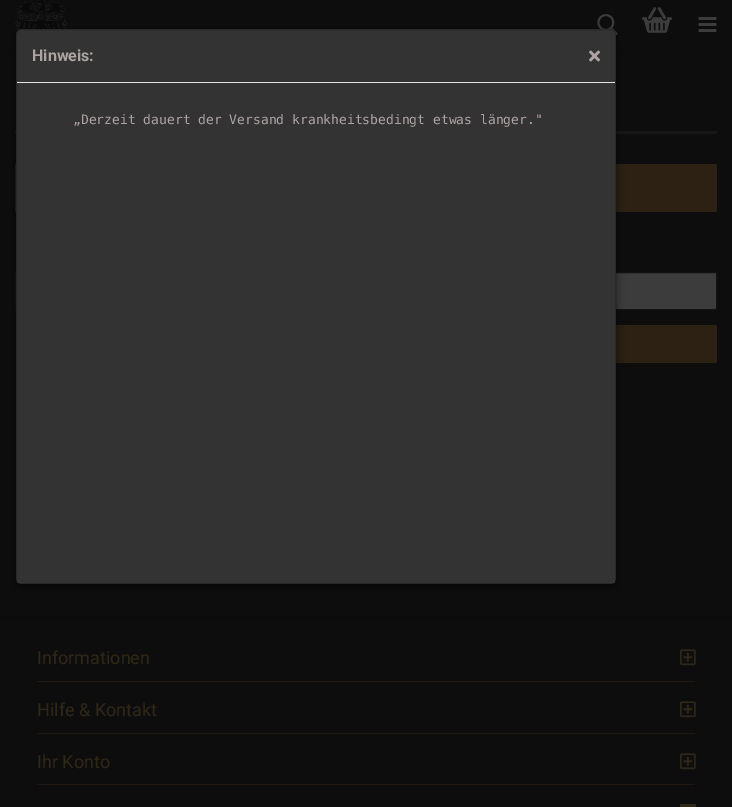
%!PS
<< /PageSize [732 807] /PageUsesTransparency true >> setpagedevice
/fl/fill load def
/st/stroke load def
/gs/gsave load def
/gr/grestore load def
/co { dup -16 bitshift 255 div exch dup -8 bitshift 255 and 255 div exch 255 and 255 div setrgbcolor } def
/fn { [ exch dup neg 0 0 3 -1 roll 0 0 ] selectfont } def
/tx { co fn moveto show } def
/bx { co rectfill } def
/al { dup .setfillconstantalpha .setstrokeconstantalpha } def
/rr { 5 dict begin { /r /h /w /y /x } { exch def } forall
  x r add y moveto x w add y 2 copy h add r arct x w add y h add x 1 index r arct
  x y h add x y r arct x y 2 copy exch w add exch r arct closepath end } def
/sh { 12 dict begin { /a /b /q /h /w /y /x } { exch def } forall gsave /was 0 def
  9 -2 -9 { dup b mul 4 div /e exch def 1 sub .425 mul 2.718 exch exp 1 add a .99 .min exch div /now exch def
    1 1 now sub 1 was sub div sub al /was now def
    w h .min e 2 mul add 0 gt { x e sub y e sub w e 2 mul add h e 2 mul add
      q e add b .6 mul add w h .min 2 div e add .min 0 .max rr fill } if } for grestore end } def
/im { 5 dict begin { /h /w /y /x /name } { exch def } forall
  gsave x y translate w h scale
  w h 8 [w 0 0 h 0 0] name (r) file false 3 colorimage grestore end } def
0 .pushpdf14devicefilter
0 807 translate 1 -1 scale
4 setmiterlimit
0 0 732 807 16#0D0D0D bx
(media/2.raw) 15 0 53 34 im
(media/3.raw) 597 14 21 21 im
(media/6.raw) 0 51 732 4 im
15 131 702 3 16#171717 bx
16#2C2113 co
15 164 702 48 2 rr fl
16#3C3C3C co
15.5 272.5 701 37 1.5 rr gs fl gr
16#131313 co
st
616 325 101 38 16#2C2113 bx
16#000000 co
16 32 600 555 6 4.5 .5 sh
16#333333 co
16 29 600 555 6 rr fl
0.2 al
16#000000 co
16.5 29.5 599 554 5.5 rr st
1 al
17 82 598 1 16#E5E5E5 bx
(media/1.raw) 589 50 11 12 im
17 579 598 4 16#333333 bx
(media/4.raw) 642 7 30 26 im
(media/5.raw) 698 17 19 15 im
(media/7.raw) 0 616 732 5 im
37 681 658 1 16#1F1811 bx
(media/8.raw) 680 649 16 17 im
37 733 658 1 16#1F1811 bx
(media/9.raw) 680 701 16 17 im
37 784 658 1 16#1F1811 bx
(media/10.raw) 680 753 16 17 im
680 804 16 3 16#2F2717 bx
(Hinweis:) 32 61 /Roboto-Bold 16 16#AEA3A3 tx
(„Derzeit dauert der Versand krankheitsbedingt etwas länger.") 73 124 /DejaVuSansMono-Regular 13 16#AEA3A3 tx
(Informationen) 37 664 /Roboto-Regular 18 16#2F2717 tx
(Hilfe & Kontakt) 37 716 /Roboto-Regular 18 16#2F2717 tx
(Ihr Konto) 37 768 /Roboto-Regular 18 16#2F2717 tx
.poppdf14devicefilter showpage
